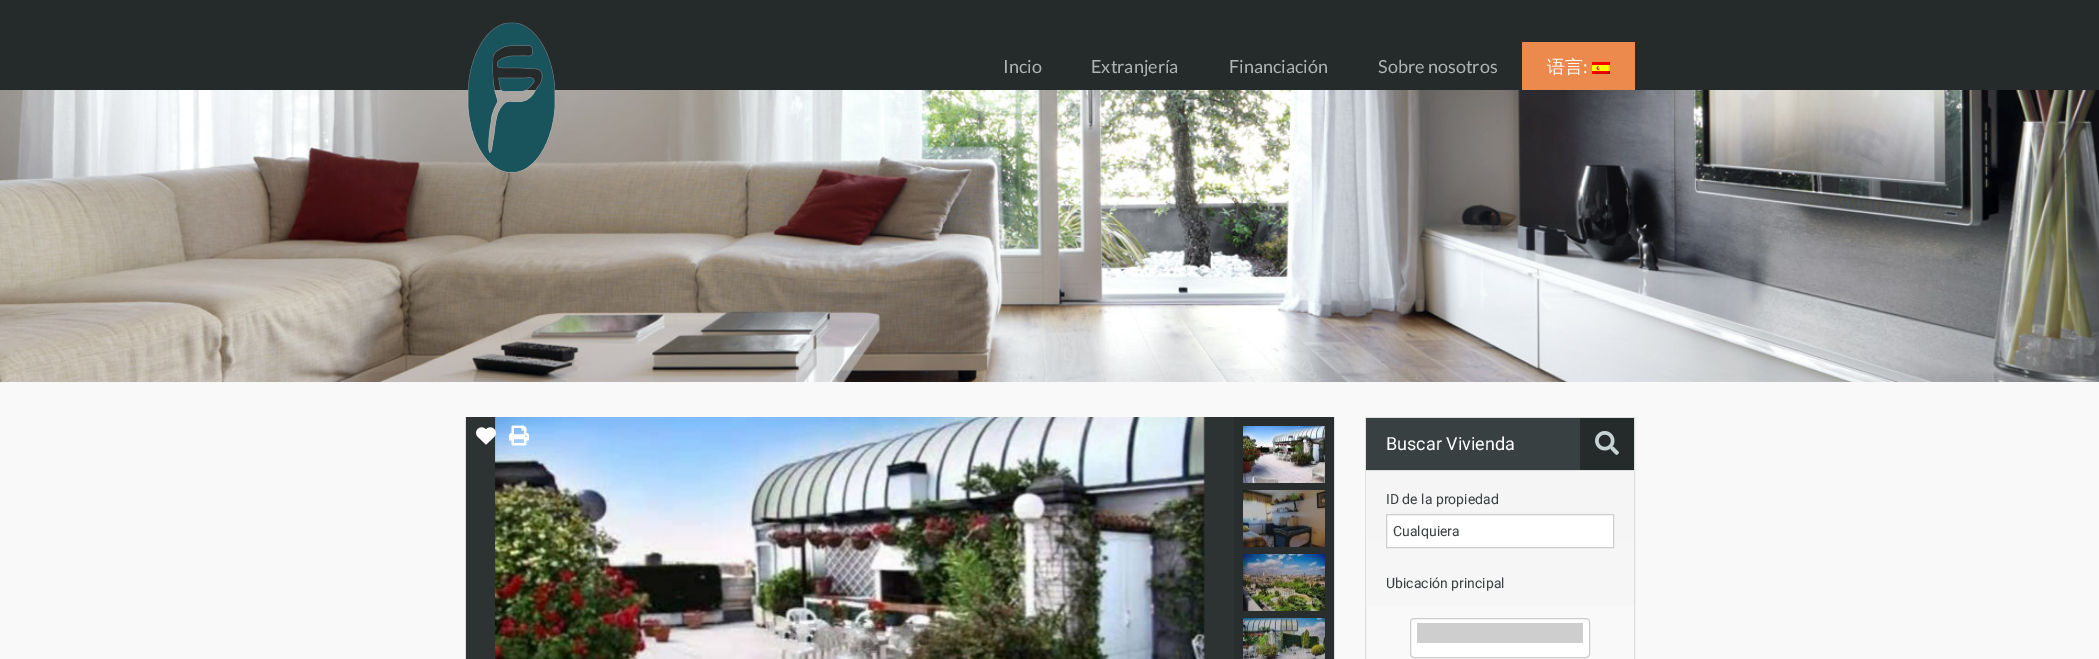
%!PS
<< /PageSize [2099 659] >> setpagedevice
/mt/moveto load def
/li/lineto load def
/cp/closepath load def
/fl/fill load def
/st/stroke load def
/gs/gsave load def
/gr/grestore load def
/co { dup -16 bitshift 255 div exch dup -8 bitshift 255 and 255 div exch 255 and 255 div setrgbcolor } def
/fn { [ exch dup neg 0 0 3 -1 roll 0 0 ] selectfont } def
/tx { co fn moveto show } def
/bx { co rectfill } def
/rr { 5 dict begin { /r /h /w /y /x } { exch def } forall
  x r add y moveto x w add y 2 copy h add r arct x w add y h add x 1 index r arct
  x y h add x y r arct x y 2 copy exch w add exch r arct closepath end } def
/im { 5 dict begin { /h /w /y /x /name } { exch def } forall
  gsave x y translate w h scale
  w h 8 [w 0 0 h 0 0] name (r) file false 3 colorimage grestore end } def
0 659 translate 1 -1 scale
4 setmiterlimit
0 0 2099 659 16#F9F9F9 bx
0 0 2099 90 16#252A2B bx
(media/3.raw) 0 90 2099 292 im
(media/1.raw) 467 22 89 151 im
1522 42 113 48 16#EC894D bx
(media/2.raw) 1592 62 18 12 im
1334 417 1 242 16#DEDEDE bx
465 417 1 242 16#DEDEDE bx
1234 417 100 242 16#292D2D bx
466 417 768 242 16#2D3333 bx
(media/4.raw) 495 417 710 242 im
(media/5.raw) 1243 426 82 57 im
(media/6.raw) 1243 490 82 57 im
(media/7.raw) 1243 554 82 57 im
(media/8.raw) 1243 618 82 41 im
(media/9.raw) 476 427 20 18 im
(media/10.raw) 509 425 20 21 im
16#DEDEDE co
1365.5 417.5 269 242 rectstroke
1366 418 214 52 16#394041 bx
1366 470 268 1 16#DEDEDE bx
1580 418 54 52 16#252A2B bx
(media/11.raw) 1595 431 24 24 im
gs 1366 471 mt 1634 471 li 1634 605 li 1366 605 li cp clip newpath
<< /ShadingType 2 /ColorSpace /DeviceRGB /Coords [1500 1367 1500 471] /Extend [true true] /Function << /FunctionType 2 /Domain [0 1] /C0 [1 1 1] /C1 [.961 .961 .961] /N 1 >> >> shfill gr
16#FFFFFF co
1386.5 514.5 mt 1613.5 514.5 li 1613.5 547.5 li 1386.5 547.5 li cp gs fl gr
16#CDCDCD co
st
16#FFFFFF co
1410.5 618.5 179 39 3.5 rr gs fl gr
16#CCCCCC co
st
1417 623 166 20 16#CECECE bx
(Incio) 1003 73 /Lato-Regular 18 16#AFB4B5 tx
(Extranjería) 1091 73 /Lato-Regular 18 16#AFB4B5 tx
(Financiación) 1229 73 /Lato-Regular 18 16#AFB4B5 tx
(Sobre nosotros) 1378 73 /Lato-Regular 18 16#AFB4B5 tx
(语言) 1547 73 /WenQuanYiZenHei-Medium 18 16#FFFFFF tx
(:) 1583 73 /Lato-Regular 18 16#FFFFFF tx
(Buscar Vivienda) 1386 450 /Roboto-Regular 18 16#FFFFFF tx
(ID de la propiedad) 1386 504 /Roboto-Regular 14 16#394041 tx
(Cualquiera) 1393 536 /Roboto-Regular 14 16#394041 tx
(Ubicación principal) 1386 588 /Roboto-Regular 14 16#394041 tx
showpage
